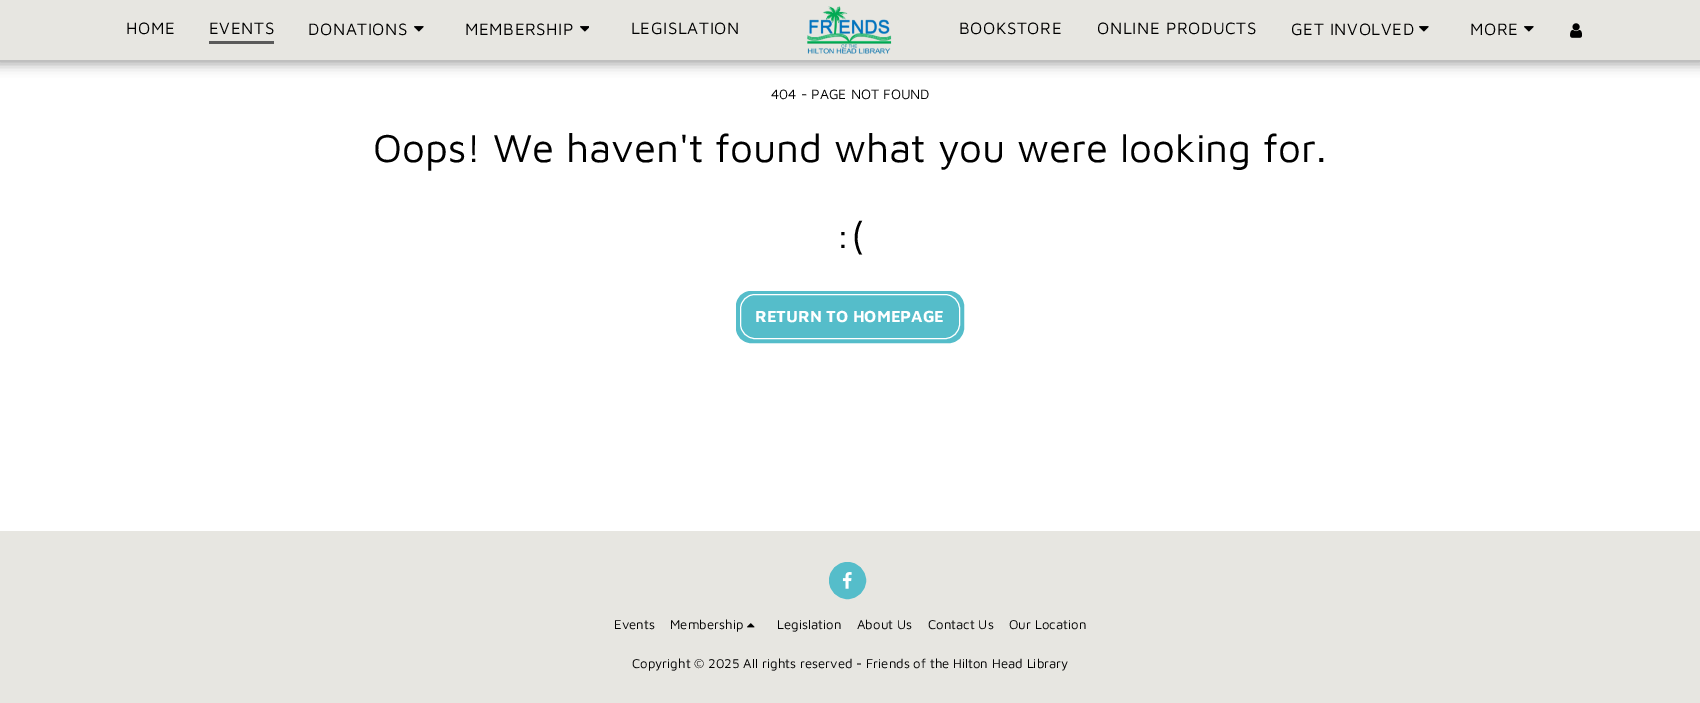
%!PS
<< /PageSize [1700 703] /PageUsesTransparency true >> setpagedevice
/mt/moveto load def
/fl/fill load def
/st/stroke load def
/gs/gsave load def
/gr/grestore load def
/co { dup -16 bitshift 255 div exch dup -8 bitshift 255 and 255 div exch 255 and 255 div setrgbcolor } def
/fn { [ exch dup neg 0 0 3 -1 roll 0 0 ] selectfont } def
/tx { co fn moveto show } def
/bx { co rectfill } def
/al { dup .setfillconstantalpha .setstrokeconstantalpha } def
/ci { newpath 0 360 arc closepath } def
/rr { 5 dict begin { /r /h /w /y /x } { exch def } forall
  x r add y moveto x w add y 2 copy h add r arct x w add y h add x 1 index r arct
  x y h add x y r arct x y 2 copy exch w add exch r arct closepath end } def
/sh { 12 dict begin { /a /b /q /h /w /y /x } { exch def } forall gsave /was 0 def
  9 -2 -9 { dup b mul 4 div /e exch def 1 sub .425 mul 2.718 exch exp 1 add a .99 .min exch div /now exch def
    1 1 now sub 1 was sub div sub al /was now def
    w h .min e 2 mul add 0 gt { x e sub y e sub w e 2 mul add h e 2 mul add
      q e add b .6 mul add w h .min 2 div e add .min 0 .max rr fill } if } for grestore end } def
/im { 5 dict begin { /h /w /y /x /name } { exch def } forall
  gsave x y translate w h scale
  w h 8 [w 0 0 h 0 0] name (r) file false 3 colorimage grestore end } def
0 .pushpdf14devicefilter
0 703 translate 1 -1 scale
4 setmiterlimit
0 0 1700 703 16#FFFFFF bx
16#000000 co
-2 0 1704 64 0 6 .35 sh
0 0 1700 60 16#E7E6E1 bx
209 41 65 3 16#5A5A5A bx
(media/1.raw) 414 26 10 6 im
(media/2.raw) 580 26 9 6 im
(media/3.raw) 807 6 85 48 im
(media/1.raw) 1419 26 10 6 im
(media/1.raw) 1524 26 10 6 im
(media/4.raw) 1570 23 12 15 im
16#55BDCA co
736.5 291.5 227 51 14.5 rr gs fl gr
st
16#FFFFFF co
740.5 294.5 219 44 14.5 rr st
0 531 1700 172 16#E7E6E1 bx
16#55BDCA co
847.5 580.5 18 ci gs fl gr
st
(media/5.raw) 842 572 10 17 im
(media/6.raw) 747 623 8 5 im
/MavenPro-Regular 17 fn
16#000000 co
126 34 mt .6 0 (HOME) ashow
209 34 mt .6 0 (EVENTS) ashow
308 35 mt .6 0 (DONATIONS) ashow
465 35 mt .6 0 (MEMBERSHIP) ashow
631 34 mt .6 0 (LEGISLATION) ashow
959 34 mt .6 0 (BOOKSTORE) ashow
1097 34 mt .6 0 (ONLINE PRODUCTS) ashow
1291 35 mt .6 0 (GET INVOLVED) ashow
1470 35 mt .6 0 (MORE) ashow
(404 - PAGE NOT FOUND) 771 99 /MavenPro-Regular 14 16#000000 tx
(Oops! We haven't found what you were looking for.) 373 162 /MavenPro-Regular 40.25 16#000000 tx
(:\() 835 250 /MavenPro-Regular 40.25 16#000000 tx
(RETURN TO HOMEPAGE) 755 322 /MavenPro-Bold 16.5 16#FFFFFF tx
(Events) 614 629 /MavenPro-Regular 13.2 16#000000 tx
(Membership) 670 629 /MavenPro-Regular 13.2 16#000000 tx
(Legislation) 777 629 /MavenPro-Regular 13.2 16#000000 tx
(About Us) 857 629 /MavenPro-Regular 13.2 16#000000 tx
(Contact Us) 928 629 /MavenPro-Regular 13.2 16#000000 tx
(Our Location) 1009 629 /MavenPro-Regular 13.2 16#000000 tx
(Copyright © 2025 All rights reserved - Friends of the Hilton Head Library) 632 668 /MavenPro-Regular 13.2 16#000000 tx
.poppdf14devicefilter showpage
